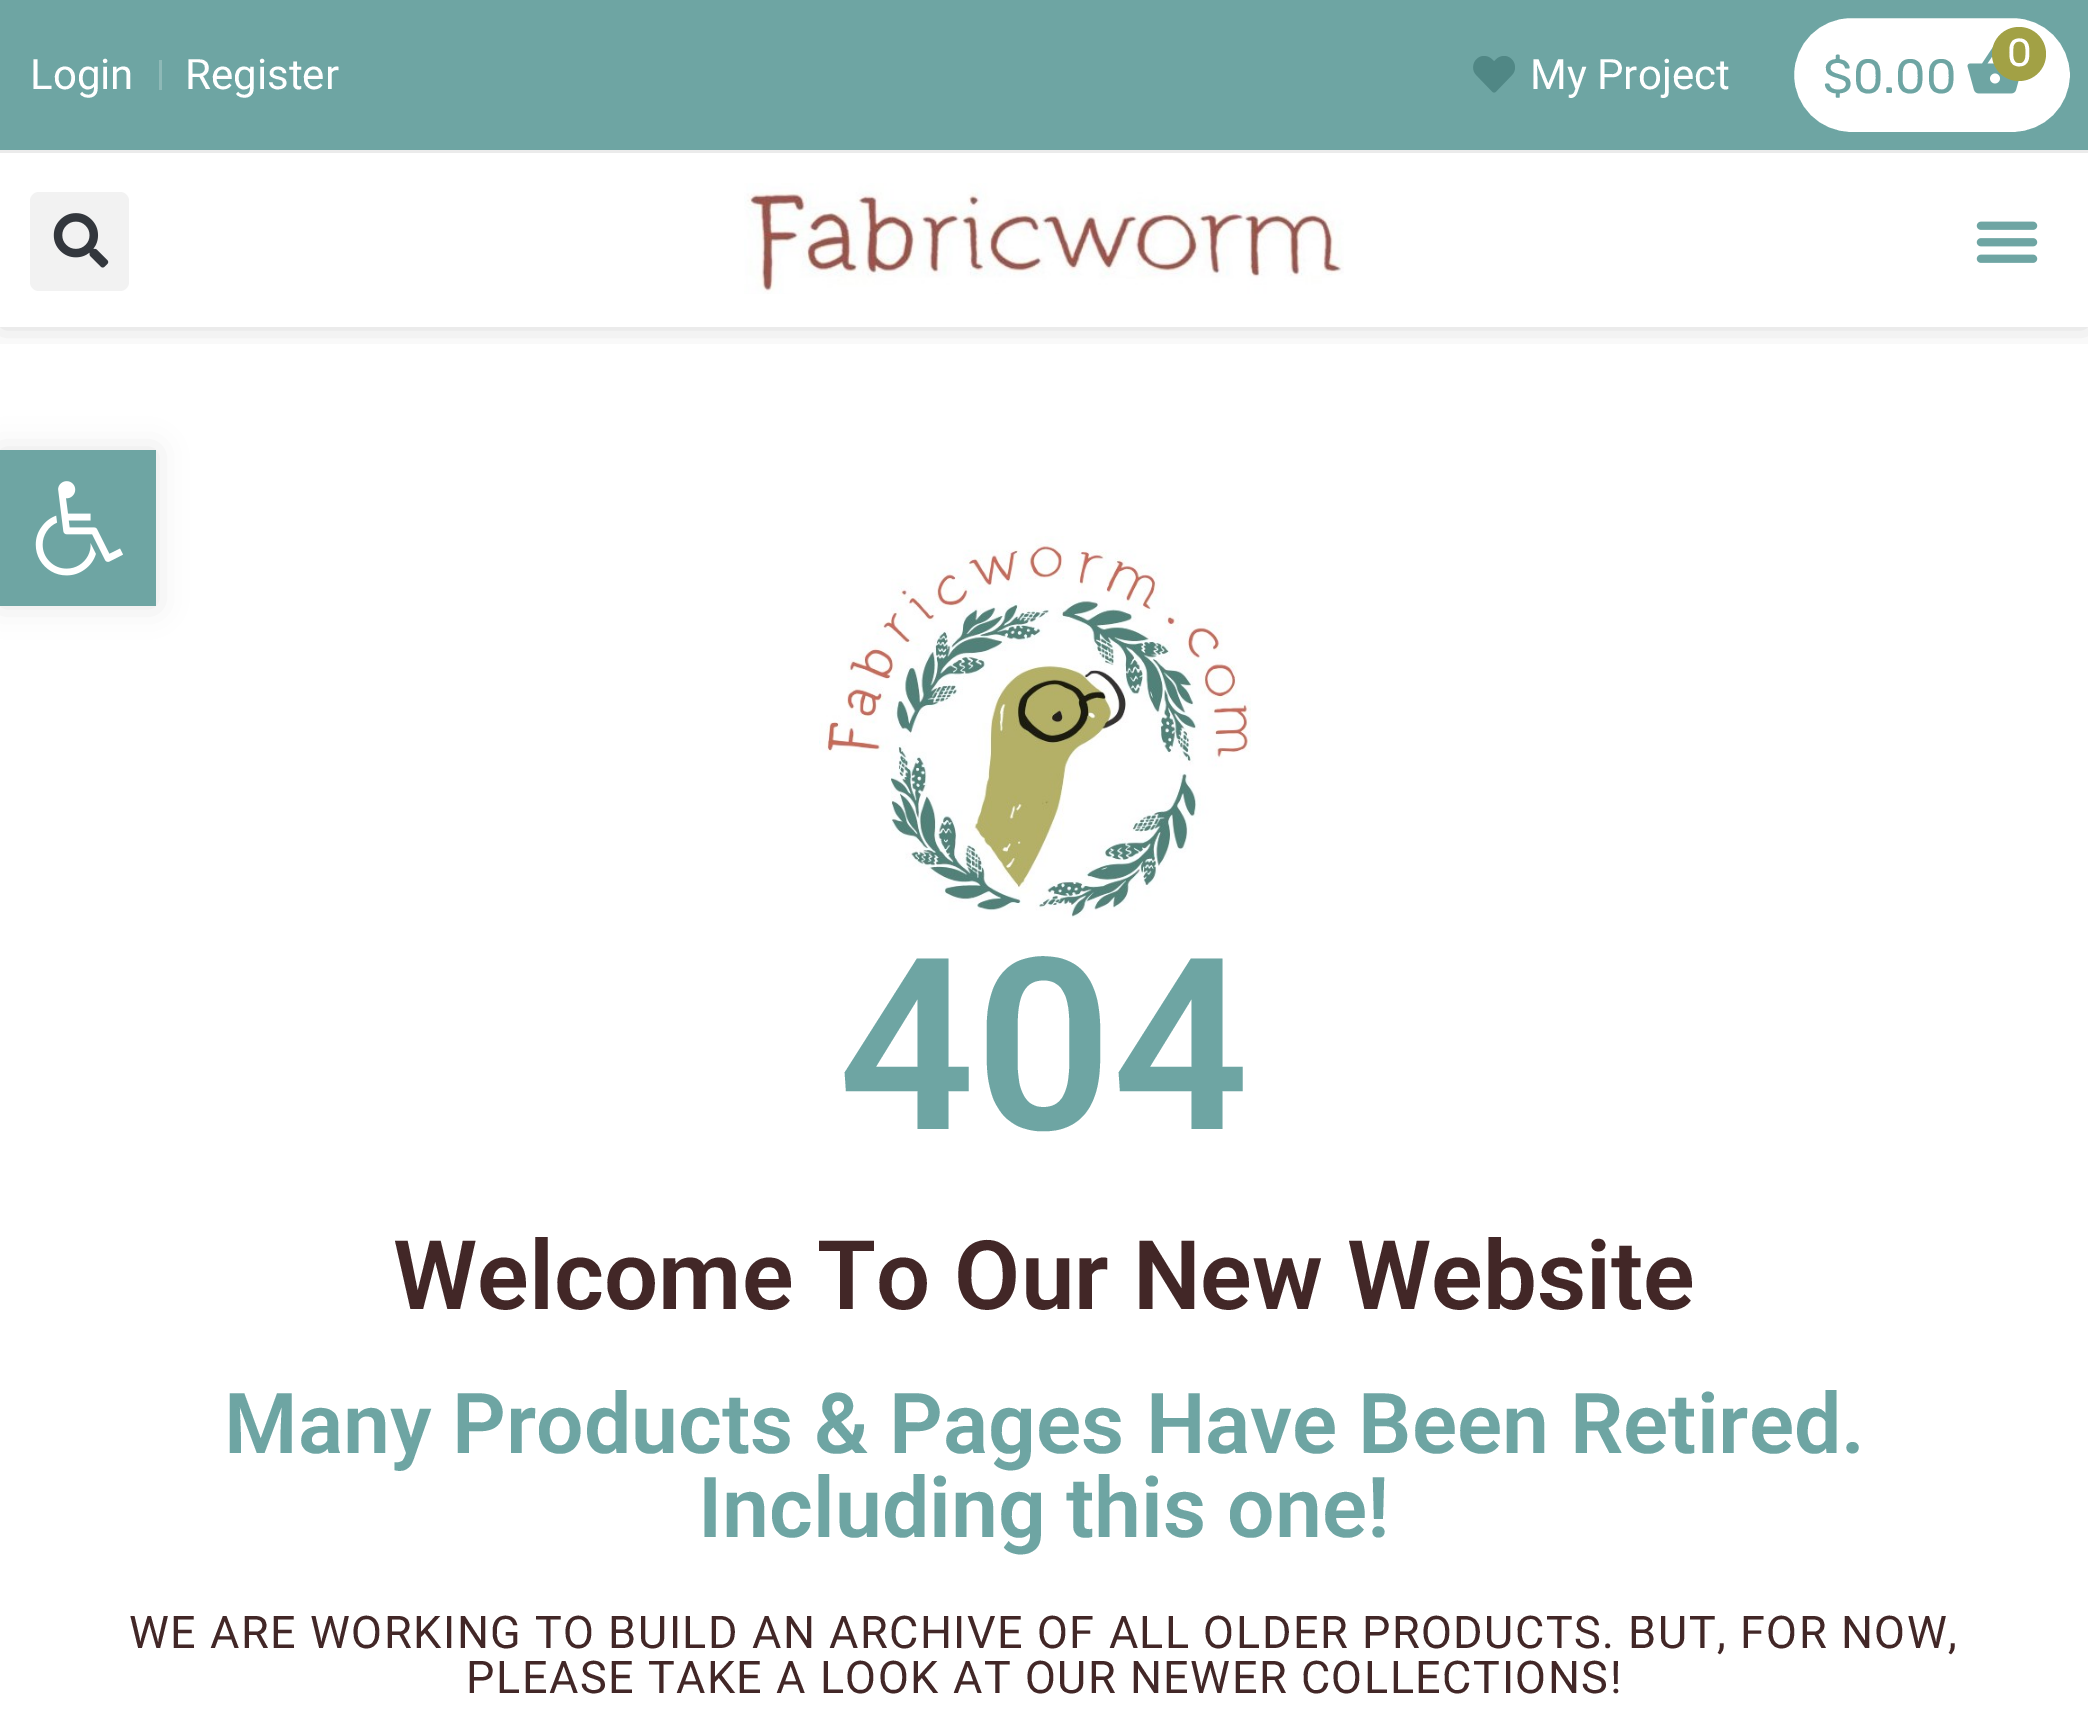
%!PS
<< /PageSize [2088 1726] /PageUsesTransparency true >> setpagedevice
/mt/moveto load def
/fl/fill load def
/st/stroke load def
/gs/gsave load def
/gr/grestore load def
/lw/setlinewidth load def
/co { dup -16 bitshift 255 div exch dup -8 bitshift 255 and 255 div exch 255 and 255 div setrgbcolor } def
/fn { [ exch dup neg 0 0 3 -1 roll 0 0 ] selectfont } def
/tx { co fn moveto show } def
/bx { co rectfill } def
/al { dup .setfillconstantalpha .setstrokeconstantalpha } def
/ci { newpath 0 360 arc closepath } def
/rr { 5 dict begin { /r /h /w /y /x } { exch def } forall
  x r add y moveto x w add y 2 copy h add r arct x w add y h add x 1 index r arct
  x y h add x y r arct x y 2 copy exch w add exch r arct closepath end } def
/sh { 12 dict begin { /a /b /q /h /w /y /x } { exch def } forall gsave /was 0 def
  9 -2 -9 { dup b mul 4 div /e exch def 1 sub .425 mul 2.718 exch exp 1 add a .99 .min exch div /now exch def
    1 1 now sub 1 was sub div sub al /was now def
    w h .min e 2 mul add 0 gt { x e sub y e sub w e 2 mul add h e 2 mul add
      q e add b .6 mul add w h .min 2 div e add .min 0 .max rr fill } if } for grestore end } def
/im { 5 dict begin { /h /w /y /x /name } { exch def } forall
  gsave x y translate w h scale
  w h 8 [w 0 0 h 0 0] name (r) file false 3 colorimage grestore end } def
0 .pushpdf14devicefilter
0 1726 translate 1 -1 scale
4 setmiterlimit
0 0 2088 1726 16#FFFFFF bx
gs
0 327 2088 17 rectclip
16#000000 co
0 150 2088 177 0 15 .15 sh
gr
0 0 2088 150 16#6EA5A3 bx
159 60 3 30 16#8EB9B7 bx
(media/1.raw) 1473 56 42 37 im
16#FFFFFF co
1792.5 16.5 279 117 58.5 rr gs fl gr
16#6EA5A3 co
3 lw
st
(media/2.raw) 1967 46 52 48 im
16#A2A145 co
2019 54 27 ci fl
0 150 2088 3 16#EBEBEB bx
16#F2F2F2 co
30 192 99 99 9 rr fl
(media/3.raw) 53 213 56 55 im
(media/4.raw) 744 183 600 111 im
(media/5.raw) 1976 221 62 42 im
16#000000 co
0 450 156 156 0 15 .1 sh
0 450 156 156 16#6EA5A3 bx
(media/6.raw) 35 481 88 95 im
(media/7.raw) 819 536 432 382 im
(Login) 30 89 /Roboto-Regular 42 16#FFFFFF tx
(Register) 185 89 /Roboto-Regular 42 16#FFFFFF tx
(My Project) 1530 89 /Roboto-Regular 42 16#FFFFFF tx
($0.00) 1823 93 /Rubik-Regular 48 16#6EA5A3 tx
(0) 2007 66 /Rubik-Regular 39 16#FFFFFF tx
(404) 838 1129 /Roboto-SemiBold 240 16#6EA5A3 tx
(Welcome To Our New Website) 393 1309 /Roboto-SemiBold 96 16#422727 tx
(Many Products & Pages Have Been Retired.) 224 1453 /Roboto-SemiBold 84 16#6EA5A3 tx
(Including this one!) 698 1537 /Roboto-SemiBold 84 16#6EA5A3 tx
/Roboto-Regular 45 fn
16#422727 co
129 1648 mt 1.5 0 (WE ARE WORKING TO BUILD AN ARCHIVE OF ALL OLDER PRODUCTS. BUT, FOR NOW,) ashow
466 1693 mt 1.5 0 (PLEASE TAKE A LOOK AT OUR NEWER COLLECTIONS!) ashow
.poppdf14devicefilter showpage
